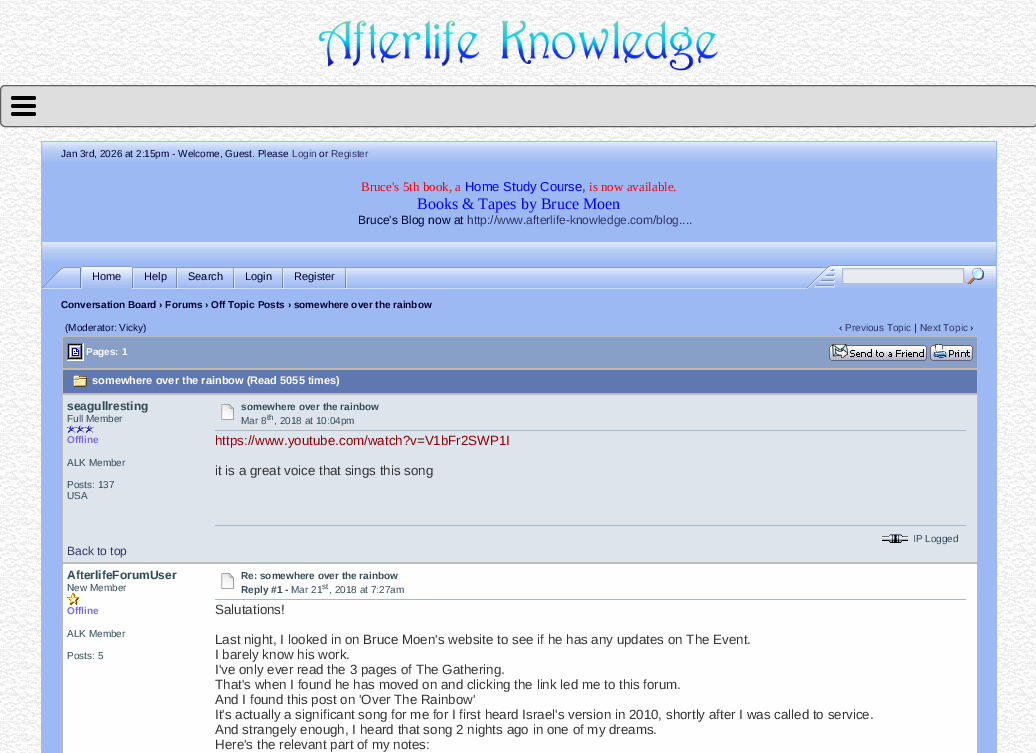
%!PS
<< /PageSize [1036 753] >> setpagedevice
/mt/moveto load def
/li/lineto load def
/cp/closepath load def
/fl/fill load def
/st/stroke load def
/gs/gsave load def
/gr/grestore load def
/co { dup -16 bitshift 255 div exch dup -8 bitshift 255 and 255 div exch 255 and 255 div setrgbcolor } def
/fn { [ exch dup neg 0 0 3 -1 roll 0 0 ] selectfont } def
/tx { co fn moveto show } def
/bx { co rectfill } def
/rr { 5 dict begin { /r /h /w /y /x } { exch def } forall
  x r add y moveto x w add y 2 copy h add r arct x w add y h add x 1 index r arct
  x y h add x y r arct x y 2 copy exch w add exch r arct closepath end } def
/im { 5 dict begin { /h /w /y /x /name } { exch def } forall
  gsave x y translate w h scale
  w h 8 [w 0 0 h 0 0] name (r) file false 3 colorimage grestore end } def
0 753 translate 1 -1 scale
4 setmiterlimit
0 0 1036 753 16#FFFFFF bx
(media/1.raw) 0 0 1036 753 im
(media/2.raw) 318 20 400 51 im
16#DEDEDE co
.5 85.5 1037 41 4.5 rr gs fl gr
16#5F5F5F co
st
16#000000 co
11 112 25 4 2 rr fl
11 104 25 4 2 rr fl
11 96 25 4 2 rr fl
41 141 956 612 16#9CB9F3 bx
(media/3.raw) 42 142 954 20 im
(media/3.raw) 42 242 954 20 im
(media/4.raw) 42 267 40 22 im
(media/5.raw) 132 267 610 22 im
(media/6.raw) 82 266 50 22 im
(media/7.raw) 132 268 2 21 im
134 267 42 22 16#9CB9F3 bx
(media/8.raw) 134 267 42 22 im
(media/7.raw) 176 268 2 21 im
178 267 55 22 16#9CB9F3 bx
(media/9.raw) 178 267 55 22 im
(media/7.raw) 233 268 2 21 im
235 267 47 22 16#9CB9F3 bx
(media/10.raw) 235 267 47 22 im
(media/7.raw) 282 268 2 21 im
284 267 61 22 16#9CB9F3 bx
(media/11.raw) 284 267 61 22 im
(media/7.raw) 345 268 2 21 im
(media/12.raw) 742 267 9 22 im
(media/13.raw) 751 267 40 22 im
(media/14.raw) 791 265 45 24 im
(media/15.raw) 836 265 160 23 im
16#E8EBEF co
842.5 268.5 mt 963.5 268.5 li 963.5 283.5 li 842.5 283.5 li cp gs fl gr
16#B1BDC9 co
st
(media/16.raw) 967 268 17 16 im
62 336 916 417 16#BBBBBB bx
63 337 914 31 16#88A0C8 bx
(media/17.raw) 67 343 17 18 im
(media/18.raw) 829 344 98 17 im
(media/19.raw) 930 344 43 17 im
63 370 914 23 16#6078B0 bx
(media/20.raw) 73 375 14 12 im
63 395 914 110 16#DEE4EC bx
(media/21.raw) 67 424 9 9 im
(media/21.raw) 76 424 9 9 im
(media/21.raw) 85 424 9 9 im
215 430 751 1 16#A7B8CC bx
(media/22.raw) 221 404 13 16 im
63 505 914 57 16#DEE4EC bx
215 525 751 1 16#A7B8CC bx
(media/23.raw) 882 534 26 9 im
63 564 914 189 16#FEFEFE bx
(media/24.raw) 67 593 12 12 im
215 599 751 1 16#A7B8CC bx
(media/25.raw) 221 573 13 16 im
(Jan 3rd, 2026 at 2:15pm - Welcome, Guest. Please) 61 157 /LiberationSans-Regular 10 16#000033 tx
(Login) 292 157 /LiberationSans-Regular 10 16#333366 tx
(or) 319 157 /LiberationSans-Regular 10 16#000033 tx
(Register) 331 157 /LiberationSans-Regular 10 16#333366 tx
(Bruce's 5th book, a) 361 191 /LiberationSerif-Regular 13 16#FF0000 tx
(Home Study Course,) 465 191 /LiberationSans-Regular 13 16#0000FF tx
(is now available.) 589 191 /LiberationSerif-Regular 13 16#FF0000 tx
(Books & Tapes by Bruce Moen) 417 209 /LiberationSerif-Regular 16 16#0000FF tx
(Bruce's Blog now at) 358 224 /LiberationSans-Regular 12 16#000033 tx
(http://www.afterlife-knowledge.com/blog....) 467 224 /LiberationSans-Regular 12 16#333366 tx
(Home) 92 280 /LiberationSans-Regular 11 16#000033 tx
(Help) 144 280 /LiberationSans-Regular 11 16#000033 tx
(Search) 188 280 /LiberationSans-Regular 11 16#000033 tx
(Login) 245 280 /LiberationSans-Regular 11 16#000033 tx
(Register) 294 280 /LiberationSans-Regular 11 16#000033 tx
(Conversation Board › Forums › Off Topic Posts › somewhere over the rainbow) 61 308 /LiberationSans-Bold 10 16#000033 tx
(\(Moderator: Vicky\)) 65 331 /LiberationSans-Regular 10 16#000033 tx
(‹) 839 331 /LiberationSans-Regular 10 16#000033 tx
(Previous Topic) 845 331 /LiberationSans-Regular 10 16#333366 tx
(|) 914 331 /LiberationSans-Regular 10 16#000033 tx
(Next Topic) 920 331 /LiberationSans-Regular 10 16#333366 tx
(›) 970 331 /LiberationSans-Regular 10 16#000033 tx
(Pages: 1) 86 355 /LiberationSans-Bold 10 16#FFFFFF tx
(somewhere over the rainbow \(Read 5055 times\)) 92 384 /LiberationSans-Bold 11 16#FFFFFF tx
(seagullresting) 67 410 /LiberationSans-Bold 12 16#304B58 tx
(Full Member) 67 422 /LiberationSans-Regular 10 16#304B58 tx
(Offline) 67 443 /LiberationSans-Bold 10 16#7B68EE tx
(ALK Member) 67 466 /LiberationSans-Regular 10 16#304B58 tx
(Posts: 137) 67 488 /LiberationSans-Regular 10 16#304B58 tx
(USA) 67 499 /LiberationSans-Regular 10 16#304B58 tx
(somewhere over the rainbow) 241 410 /LiberationSans-Bold 10 16#304B58 tx
(Mar 8) 241 424 /LiberationSans-Regular 10 16#304B58 tx
(th) 267 420 /LiberationSans-Regular 8 16#304B58 tx
(, 2018 at 10:04pm) 274 424 /LiberationSans-Regular 10 16#304B58 tx
(https://www.youtube.com/watch?v=V1bFr2SWP1I) 215 445 /LiberationSans-Regular 13.35 16#900000 tx
(it is a great voice that sings this song) 215 475 /LiberationSans-Regular 13.35 16#333333 tx
(IP Logged) 913 542 /LiberationSans-Regular 10 16#304B58 tx
(Back to top) 67 555 /LiberationSans-Regular 12 16#333366 tx
(AfterlifeForumUser) 67 579 /LiberationSans-Bold 12 16#304B58 tx
(New Member) 67 591 /LiberationSans-Regular 10 16#304B58 tx
(Offline) 67 614 /LiberationSans-Bold 10 16#7B68EE tx
(ALK Member) 67 637 /LiberationSans-Regular 10 16#304B58 tx
(Posts: 5) 67 659 /LiberationSans-Regular 10 16#304B58 tx
(Re: somewhere over the rainbow) 241 579 /LiberationSans-Bold 10 16#304B58 tx
(Reply #1 -) 241 593 /LiberationSans-Bold 10 16#304B58 tx
(Mar 21) 291 593 /LiberationSans-Regular 10 16#304B58 tx
(st) 322 589 /LiberationSans-Regular 8 16#304B58 tx
(, 2018 at 7:27am) 329 593 /LiberationSans-Regular 10 16#304B58 tx
(Salutations!) 215 614 /LiberationSans-Regular 13.35 16#333333 tx
(Last night, I looked in on Bruce Moen's website to see if he has any updates on The Event.) 215 644 /LiberationSans-Regular 13.35 16#333333 tx
(I barely know his work.) 215 659 /LiberationSans-Regular 13.35 16#333333 tx
(I've only ever read the 3 pages of The Gathering.) 215 674 /LiberationSans-Regular 13.35 16#333333 tx
(That's when I found he has moved on and clicking the link led me to this forum.) 215 689 /LiberationSans-Regular 13.35 16#333333 tx
(And I found this post on 'Over The Rainbow') 215 704 /LiberationSans-Regular 13.35 16#333333 tx
(It's actually a significant song for me for I first heard Israel's version in 2010, shortly after I was called to service.) 215 719 /LiberationSans-Regular 13.35 16#333333 tx
(And strangely enough, I heard that song 2 nights ago in one of my dreams.) 215 734 /LiberationSans-Regular 13.35 16#333333 tx
(Here's the relevant part of my notes:) 215 749 /LiberationSans-Regular 13.35 16#333333 tx
showpage
